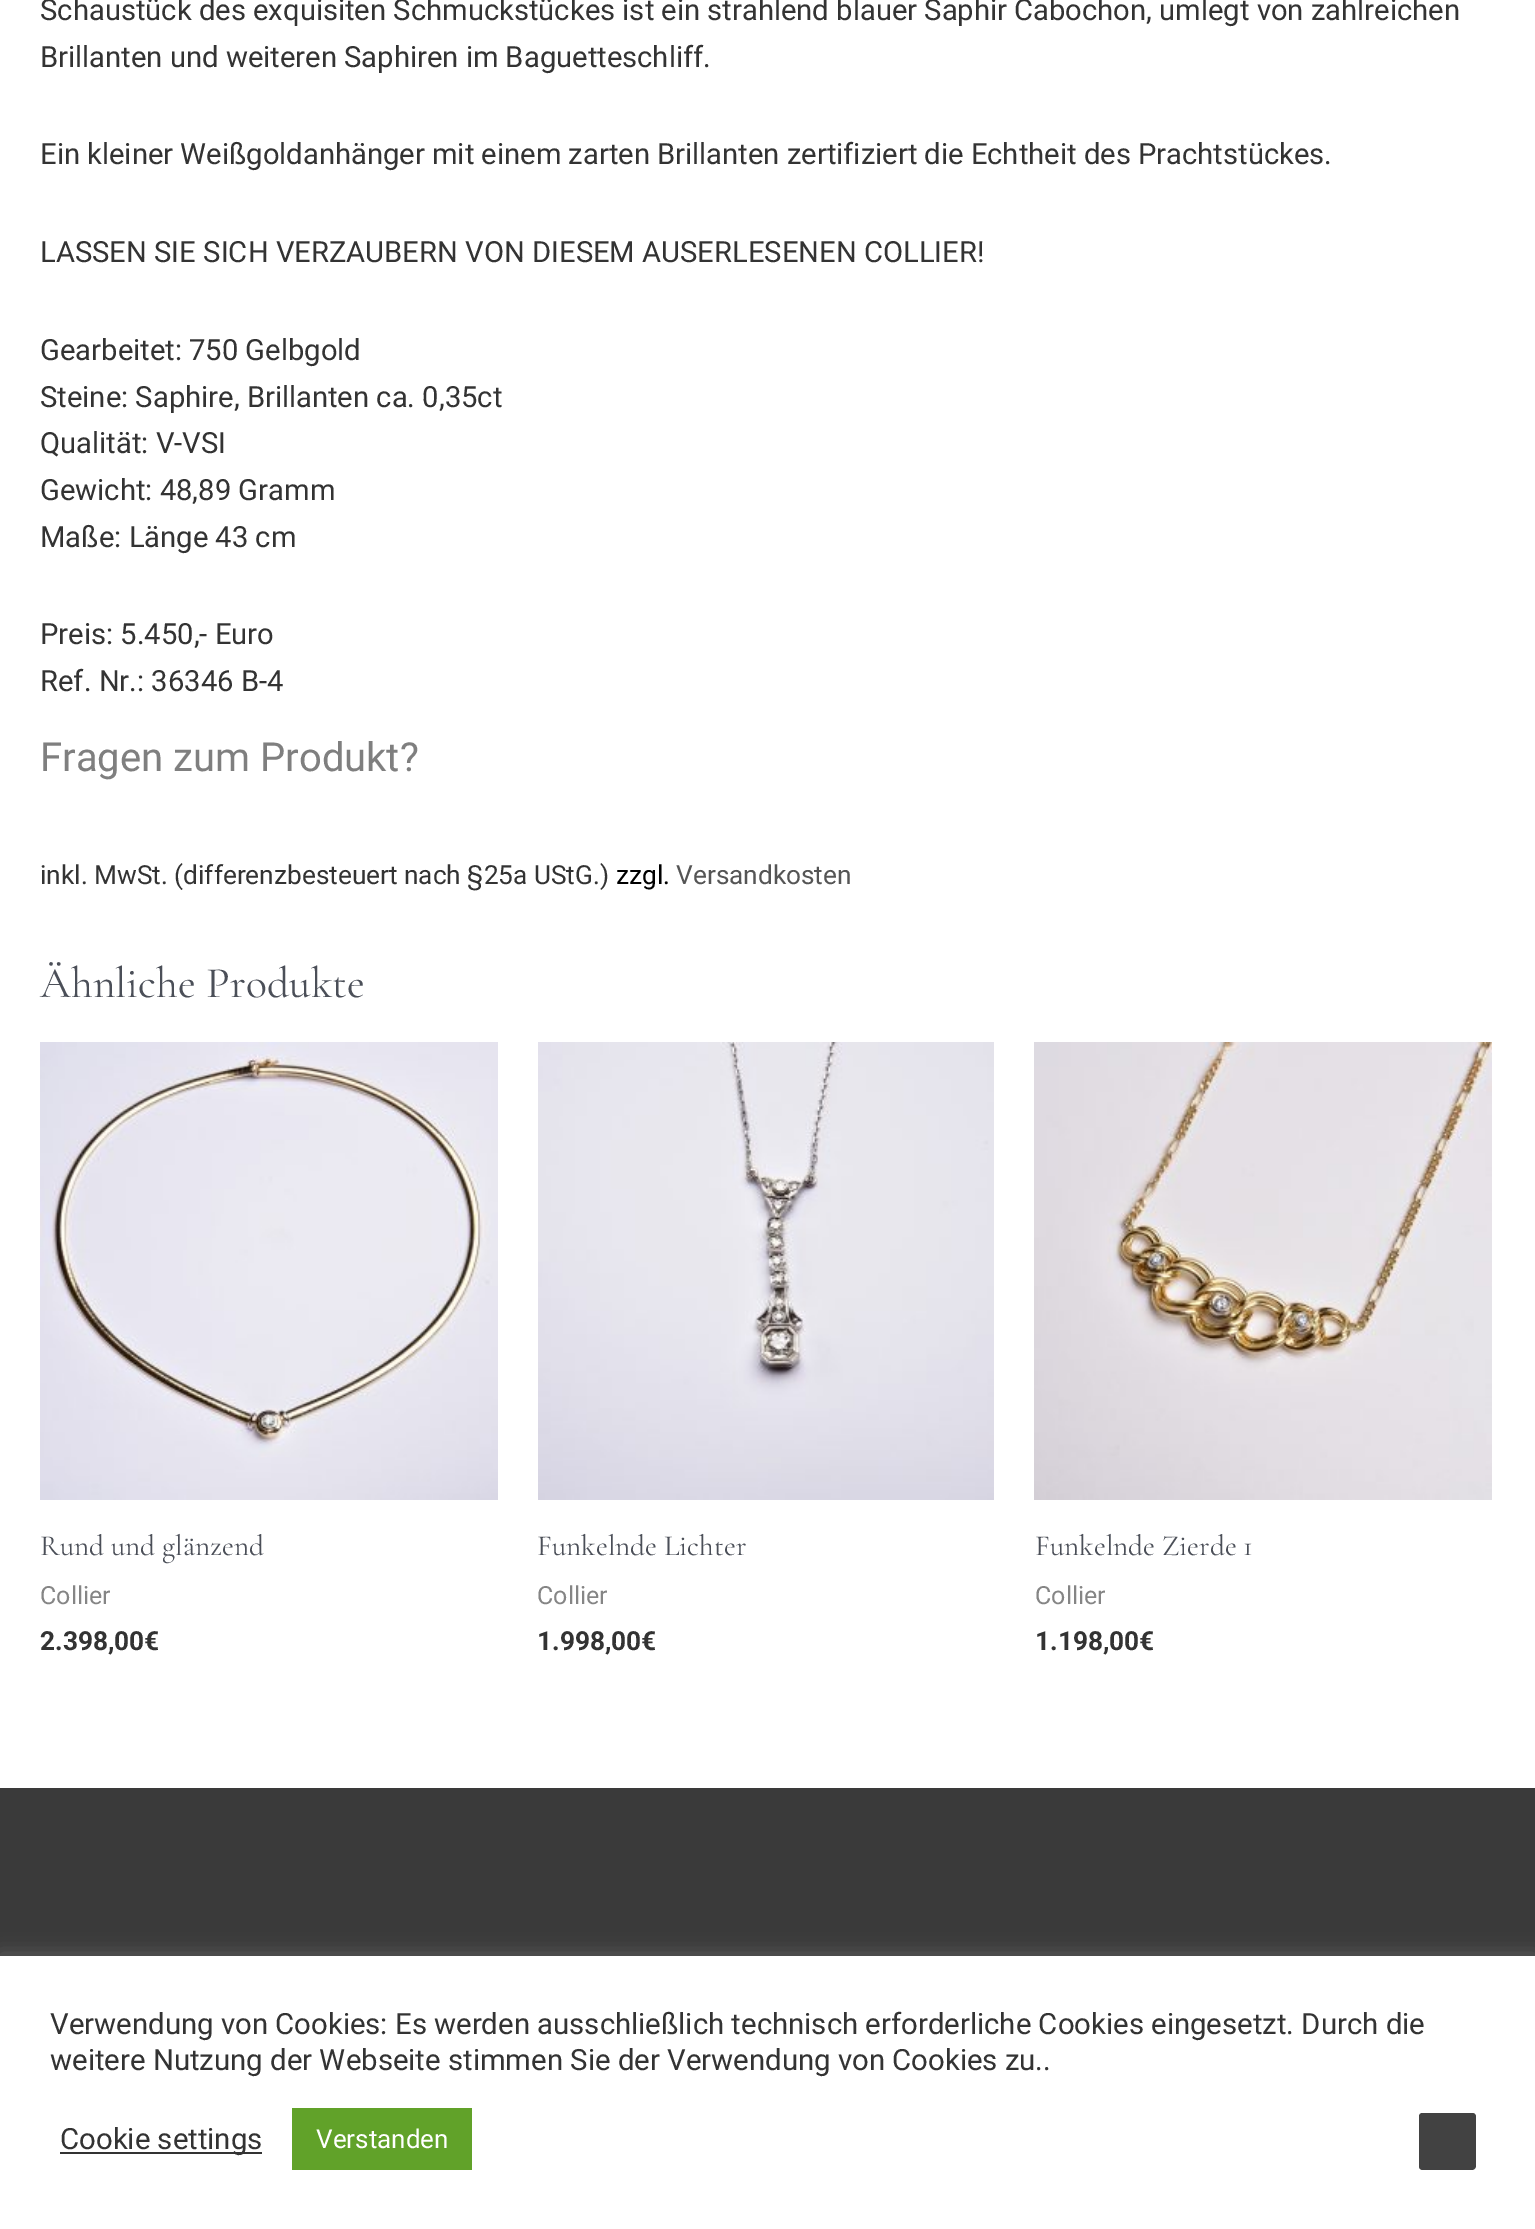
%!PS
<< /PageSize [1535 2229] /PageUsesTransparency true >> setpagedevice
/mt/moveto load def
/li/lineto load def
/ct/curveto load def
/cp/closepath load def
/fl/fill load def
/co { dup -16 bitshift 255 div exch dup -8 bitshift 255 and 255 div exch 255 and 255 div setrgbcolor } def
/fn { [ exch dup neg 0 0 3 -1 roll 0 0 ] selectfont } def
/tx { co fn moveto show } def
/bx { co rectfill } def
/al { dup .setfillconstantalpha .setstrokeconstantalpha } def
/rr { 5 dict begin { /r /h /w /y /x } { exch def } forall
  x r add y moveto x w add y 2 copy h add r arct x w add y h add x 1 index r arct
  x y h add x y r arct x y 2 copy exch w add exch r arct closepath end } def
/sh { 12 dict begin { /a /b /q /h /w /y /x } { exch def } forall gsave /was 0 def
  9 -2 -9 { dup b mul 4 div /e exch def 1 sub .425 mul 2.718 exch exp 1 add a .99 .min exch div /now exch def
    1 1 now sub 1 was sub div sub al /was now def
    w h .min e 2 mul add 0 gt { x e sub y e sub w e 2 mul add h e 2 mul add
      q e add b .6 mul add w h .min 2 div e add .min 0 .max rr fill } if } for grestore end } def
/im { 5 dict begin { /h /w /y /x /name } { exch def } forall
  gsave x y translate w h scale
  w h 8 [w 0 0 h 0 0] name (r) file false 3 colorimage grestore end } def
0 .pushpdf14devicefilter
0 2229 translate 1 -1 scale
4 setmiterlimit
0 0 1535 2229 16#FFFFFF bx
(media/1.raw) 40 1042 458 458 im
(media/2.raw) 538 1042 456 458 im
(media/3.raw) 1034 1042 458 458 im
0 1788 1535 168 16#3A3A3A bx
16#ACABAB co
0 1954 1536 274 0 10 .3 sh
0 1956 1535 273 16#FFFFFF bx
60 2152 202 2 16#333333 bx
292 2108 180 62 16#61A229 bx
16#424242 co
1472 2170 mt 1423 2170 li 1420 2170 1419 2168 1419 2166 ct 1419 2117 li 1419 2114 1420 2113 1423 2113 ct 1472 2113 li 1474 2113 1476 2114 1476 2117 ct 1476 2166 li 1476 2168 1474 2170 1472 2170 ct cp fl
(Schaustück des exquisiten Schmuckstückes ist ein strahlend blauer Saphir Cabochon, umlegt von zahlreichen) 40 20 /Roboto-Regular 29.2 16#333333 tx
(Brillanten und weiteren Saphiren im Baguetteschliff.) 40 67 /Roboto-Regular 29.2 16#333333 tx
(Ein kleiner Weißgoldanhänger mit einem zarten Brillanten zertifiziert die Echtheit des Prachtstückes.) 40 164 /Roboto-Regular 29.2 16#333333 tx
(LASSEN SIE SICH VERZAUBERN VON DIESEM AUSERLESENEN COLLIER!) 40 262 /Roboto-Regular 29.2 16#333333 tx
(Gearbeitet: 750 Gelbgold) 40 360 /Roboto-Regular 29.2 16#333333 tx
(Steine: Saphire, Brillanten ca. 0,35ct) 40 407 /Roboto-Regular 29.2 16#333333 tx
(Qualität: V-VSI) 40 453 /Roboto-Regular 29.2 16#333333 tx
(Gewicht: 48,89 Gramm) 40 500 /Roboto-Regular 29.2 16#333333 tx
(Maße: Länge 43 cm) 40 547 /Roboto-Regular 29.2 16#333333 tx
(Preis: 5.450,- Euro) 40 644 /Roboto-Regular 29.2 16#333333 tx
(Ref. Nr.: 36346 B-4) 40 691 /Roboto-Regular 29.2 16#333333 tx
(Fragen zum Produkt?) 40 771 /Roboto-Regular 40 16#7F7F7F tx
(inkl. MwSt. \(differenzbesteuert nach §25a UStG.\)) 40 884 /Roboto-Regular 26.25 16#333333 tx
(zzgl.) 616 884 /Roboto-Regular 26.25 16#000000 tx
(Versandkosten) 676 884 /Roboto-Regular 26.25 16#555555 tx
(Ähnliche Produkte) 40 997 /CormorantGaramond-Regular 43.75 16#4B4F58 tx
(Rund und glänzend) 40 1555 /CormorantGaramond-Regular 29.2 16#4B4F58 tx
(Collier) 40 1604 /Roboto-Regular 25 16#858585 tx
(2.398,00€) 40 1650 /Roboto-Bold 26.25 16#333333 tx
(Funkelnde Lichter) 537 1555 /CormorantGaramond-Regular 29.2 16#4B4F58 tx
(Collier) 537 1604 /Roboto-Regular 25 16#858585 tx
(1.998,00€) 537 1650 /Roboto-Bold 26.25 16#333333 tx
(Funkelnde Zierde 1) 1035 1555 /CormorantGaramond-Regular 29.2 16#4B4F58 tx
(Collier) 1035 1604 /Roboto-Regular 25 16#858585 tx
(1.198,00€) 1035 1650 /Roboto-Bold 26.25 16#333333 tx
(Verwendung von Cookies: Es werden ausschließlich technisch erforderliche Cookies eingesetzt. Durch die) 50 2034 /Roboto-Regular 29.35 16#333333 tx
(weitere Nutzung der Webseite stimmen Sie der Verwendung von Cookies zu..) 50 2070 /Roboto-Regular 29.35 16#333333 tx
(Cookie settings) 60 2149 /Roboto-Regular 29.35 16#333333 tx
(Verstanden) 316 2148 /Roboto-Regular 26 16#FFFFFF tx
.poppdf14devicefilter showpage
